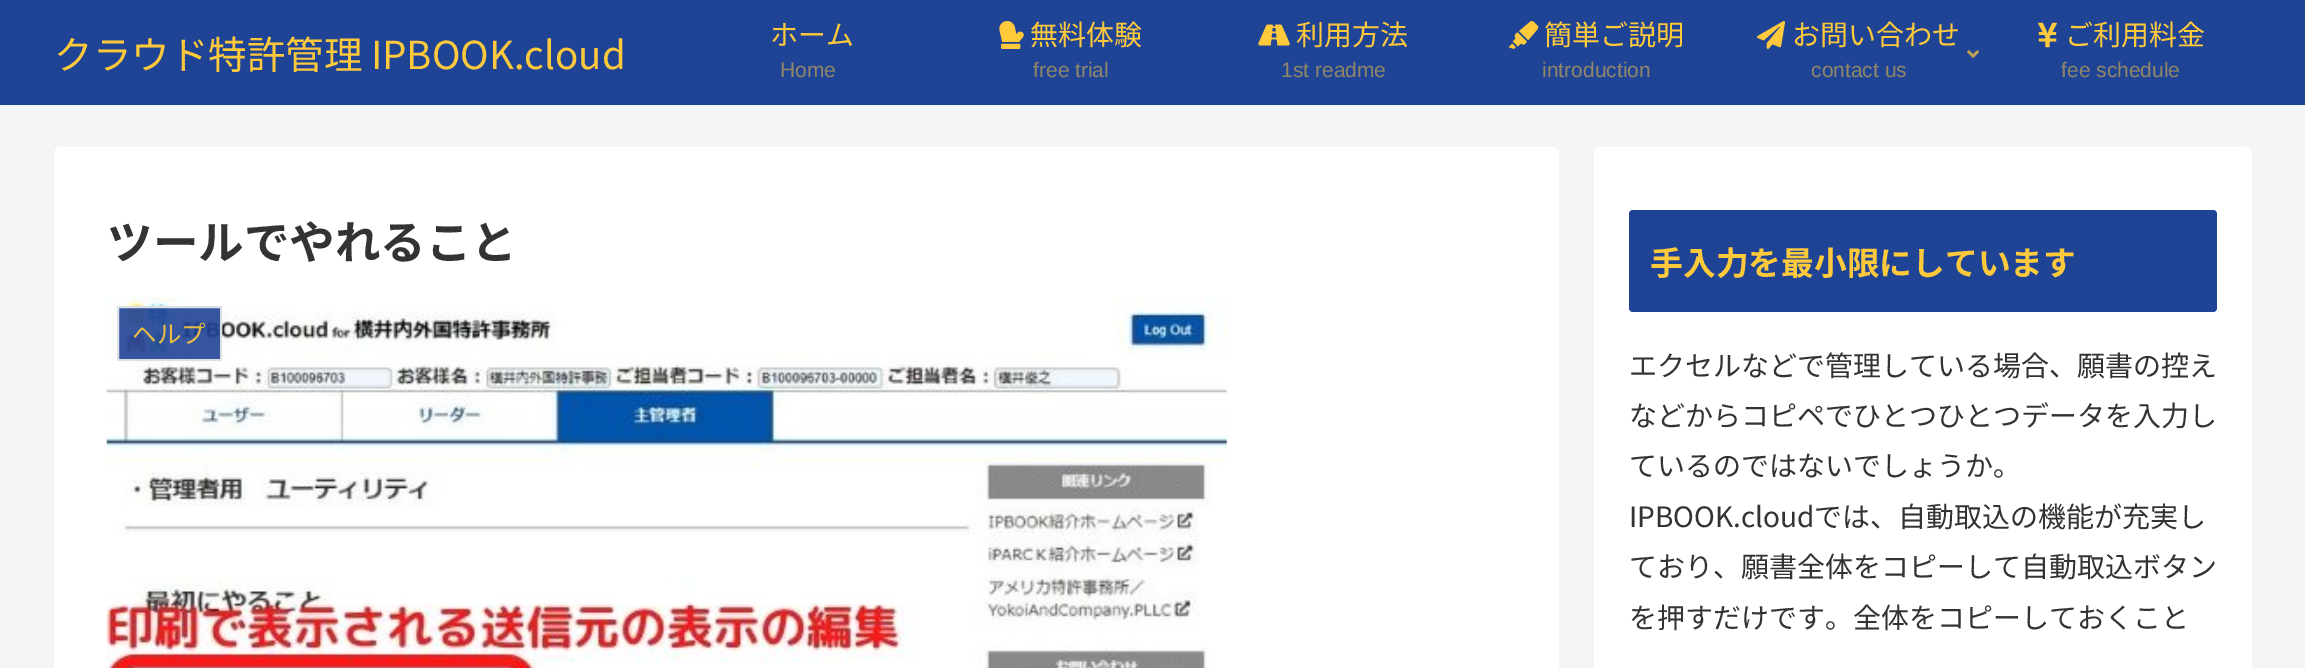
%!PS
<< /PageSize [2305 668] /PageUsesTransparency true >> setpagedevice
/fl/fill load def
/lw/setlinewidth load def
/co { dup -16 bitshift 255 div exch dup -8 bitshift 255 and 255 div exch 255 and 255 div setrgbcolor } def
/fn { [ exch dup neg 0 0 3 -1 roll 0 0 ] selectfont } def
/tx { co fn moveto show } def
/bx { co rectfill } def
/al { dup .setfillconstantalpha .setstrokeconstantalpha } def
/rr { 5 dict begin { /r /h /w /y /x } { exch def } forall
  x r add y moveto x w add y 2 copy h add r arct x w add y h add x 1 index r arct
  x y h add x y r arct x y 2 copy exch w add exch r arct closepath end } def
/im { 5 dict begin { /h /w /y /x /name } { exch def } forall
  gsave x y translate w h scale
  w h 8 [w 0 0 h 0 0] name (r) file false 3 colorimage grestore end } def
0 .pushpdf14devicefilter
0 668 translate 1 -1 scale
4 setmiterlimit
0 0 2305 668 16#F4F5F7 bx
0 0 2305 105 16#204495 bx
(media/1.raw) 999 21 25 28 im
(media/2.raw) 1258 24 32 22 im
(media/3.raw) 1508 21 31 28 im
(media/4.raw) 1757 21 28 28 im
(media/5.raw) 1967 50 12 8 im
(media/6.raw) 2038 22 19 26 im
16#FFFFFF co
54 147 1505 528 7 rr fl
(media/7.raw) 106 297 1121 371 im
0.9 al
117 306 105 55 16#204495 bx
16#EEEEEE co
2 lw
118 307 103 53 rectstroke
1 al
16#FFFFFF co
1594 147 658 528 7 rr fl
16#204495 co
1629 210 588 102 4 rr fl
(クラウド特許管理 IPBOOK.cloud) 54 69 /NotoSansJP-Regular 38.5 16#FFC93C tx
(ホーム) 770 45 /NotoSansJP-Regular 28 16#FFC93C tx
(Home) 780 77 /LiberationSans-Regular 21 16#908769 tx
(無料体験) 1030 45 /NotoSansJP-Regular 28 16#FFC93C tx
(free trial) 1033 77 /LiberationSans-Regular 21 16#908769 tx
(利用方法) 1296 45 /NotoSansJP-Regular 28 16#FFC93C tx
(1st readme) 1281 77 /LiberationSans-Regular 21 16#908769 tx
(簡単ご説明) 1544 45 /NotoSansJP-Regular 28 16#FFC93C tx
(introduction) 1542 77 /LiberationSans-Regular 21 16#908769 tx
(お問い合わせ) 1792 45 /NotoSansJP-Regular 28 16#FFC93C tx
(contact us) 1811 77 /LiberationSans-Regular 21 16#908769 tx
(ご利用料金) 2065 45 /NotoSansJP-Regular 28 16#FFC93C tx
(fee schedule) 2061 77 /LiberationSans-Regular 21 16#908769 tx
(ツールでやれること) 107 259 /NotoSansJP-Bold 45.5 16#333333 tx
(ヘルプ) 132 343 /NotoSansJP-Regular 24.5 16#EABD45 tx
(手入力を最小限にしています) 1650 275 /NotoSansJP-Bold 32.75 16#FFC93C tx
(エクセルなどで管理している場合、願書の控え) 1629 376 /NotoSansJP-Regular 28 16#333333 tx
(などからコピペでひとつひとつデータを入力し) 1629 426 /NotoSansJP-Regular 28 16#333333 tx
(ているのではないでしょうか。) 1629 476 /NotoSansJP-Regular 28 16#333333 tx
(IPBOOK.cloudでは、自動取込の機能が充実し) 1629 527 /NotoSansJP-Regular 28 16#333333 tx
(ており、願書全体をコピーして自動取込ボタン) 1629 577 /NotoSansJP-Regular 28 16#333333 tx
(を押すだけです。全体をコピーしておくこと) 1629 628 /NotoSansJP-Regular 28 16#333333 tx
.poppdf14devicefilter showpage
